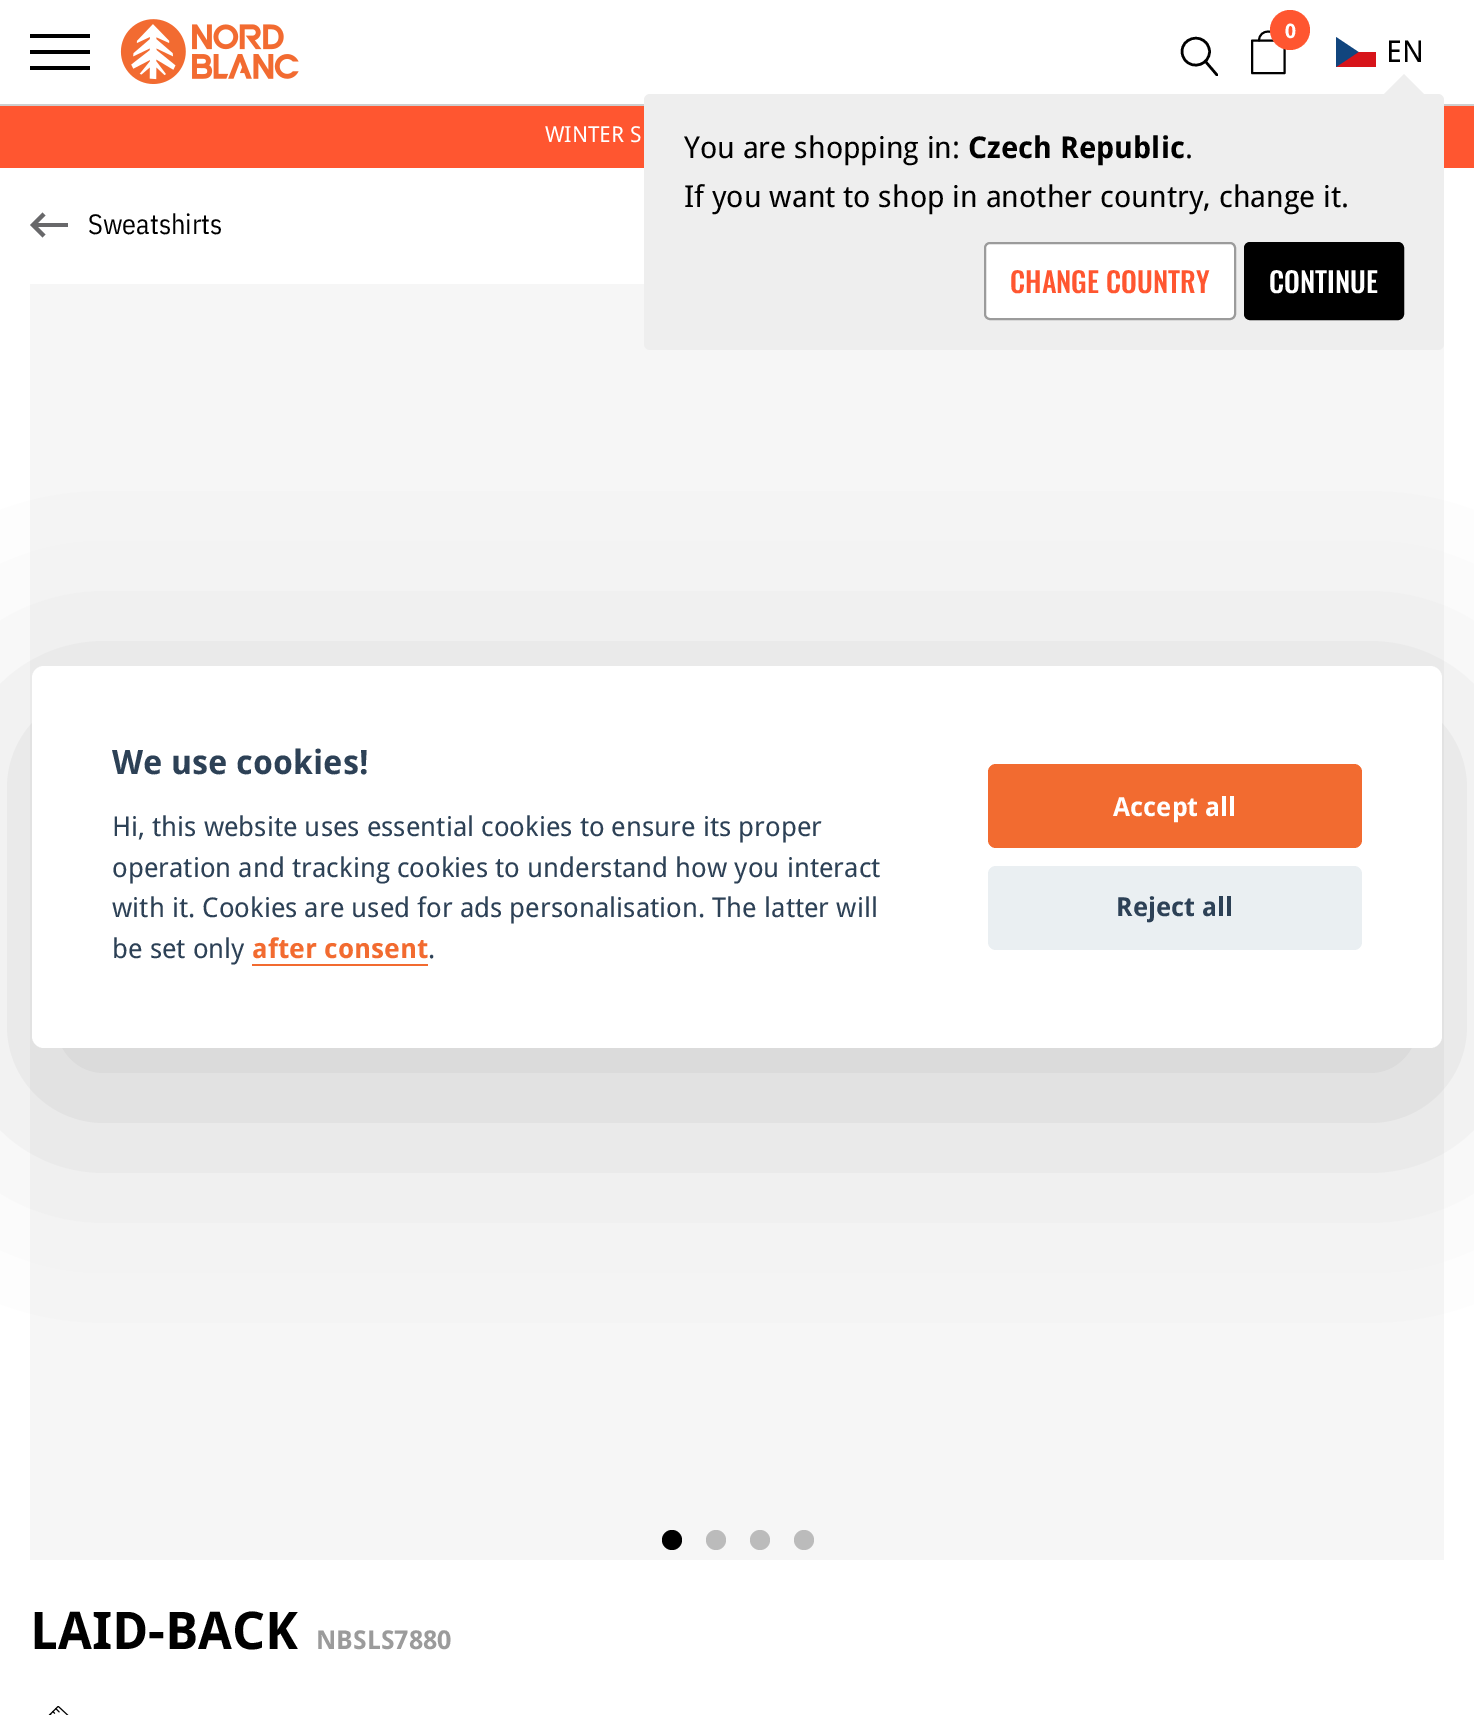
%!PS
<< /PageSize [1474 1715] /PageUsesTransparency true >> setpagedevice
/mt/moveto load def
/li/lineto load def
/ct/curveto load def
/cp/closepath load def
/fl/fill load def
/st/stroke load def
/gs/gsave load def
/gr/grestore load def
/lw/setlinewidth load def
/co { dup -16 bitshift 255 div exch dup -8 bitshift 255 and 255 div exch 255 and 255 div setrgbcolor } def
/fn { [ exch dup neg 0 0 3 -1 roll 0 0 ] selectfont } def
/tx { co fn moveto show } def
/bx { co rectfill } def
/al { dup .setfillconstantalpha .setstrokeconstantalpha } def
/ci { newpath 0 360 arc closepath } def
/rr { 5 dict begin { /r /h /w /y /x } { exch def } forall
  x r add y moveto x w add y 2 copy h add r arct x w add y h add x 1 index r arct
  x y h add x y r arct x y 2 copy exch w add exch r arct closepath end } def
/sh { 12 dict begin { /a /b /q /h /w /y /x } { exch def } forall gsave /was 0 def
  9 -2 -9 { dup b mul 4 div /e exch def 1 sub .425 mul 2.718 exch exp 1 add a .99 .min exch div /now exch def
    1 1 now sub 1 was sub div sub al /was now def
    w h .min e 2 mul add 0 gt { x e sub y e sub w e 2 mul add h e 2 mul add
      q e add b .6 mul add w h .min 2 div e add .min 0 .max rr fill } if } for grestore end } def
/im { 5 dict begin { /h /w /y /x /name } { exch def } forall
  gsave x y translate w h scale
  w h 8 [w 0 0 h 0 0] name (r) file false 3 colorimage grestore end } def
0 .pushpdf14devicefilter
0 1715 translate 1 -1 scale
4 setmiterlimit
0 0 1474 1715 16#FFFFFF bx
0 106 1474 62 16#FF5630 bx
0 104 1474 2 16#CECECE bx
30 34 60 4 16#000000 bx
30 50 60 4 16#000000 bx
30 66 60 4 16#000000 bx
(media/1.raw) 120 19 179 65 im
1.9 lw
1 setlinejoin
1252 40.5 mt 1284.5 40.5 li 1284.5 73 li 1252 73 li cp st
1 setlinecap
1259 40.5 mt 1259 28.5 1277.5 28.5 1277.5 40.5 ct st
16#FF5630 co
1290 30 20 ci fl
16#000000 co
2.5 lw
0 setlinecap
1209.5 51.5 mt 1209.5 64.5 1193 70 1185 60 ct 1183 57.5 1182 54.5 1182 51.5 ct 1182 38.5 1199.5 33 1207 44 ct 1208.5 46 1209.5 49 1209.5 51.5 ct cp st
gs
1180 36 38 40 rectclip
1 setlinecap
1217 75 mt 1205.5 61.5 li st
gr
1336 52 40 15 16#D7141A bx
16#11457E co
1358.5 52 mt 1336 37 li 1336 67 li cp fl
30 284 1414 1276 16#F6F6F6 bx
16#EEEEEE co
644 94 800 256 6 rr fl
1424 94 mt 1384 94 li 1404 74 li cp fl
16#FFFFFF co
985 243 250 76 5 rr gs fl gr
16#9B9B9B co
2 lw
0 setlinejoin
st
16#000000 co
1245 243 158 76 5 rr gs fl gr
st
16#68686A co
68 223 mt 38 223 li 45.5 215.5 li 42.5 212.5 li 30 225 li 42.5 237.5 li 45.5 234.5 li 38 227 li 68 227 li 68 223 li fl
16#000000 co
672 1540 10 ci fl
16#BBBBBB co
716 1540 10 ci fl
760 1540 10 ci fl
804 1540 10 ci fl
(media/2.raw) 48 1706 21 9 im
16#363636 co
32 716 1410 382 12 100 .2 sh
16#FFFFFF co
32 666 1410 382 12 rr fl
252 964 176 2 16#F26B30 bx
988 764 374 84 8 rr fl
16#EAEFF2 co
988 866 374 84 8 rr fl
(WINTER S) 545 142 /DroidSans-Regular 22 16#FFFFFF tx
(0) 1285 38 /DroidSans-Bold 20 16#FFFFFF tx
(EN) 1386 62 /DroidSans-Regular 30 16#000000 tx
(You are shopping in:) 684 158 /DroidSans-Regular 30 16#000000 tx
(Czech Republic) 968 158 /DroidSans-Bold 30 16#000000 tx
(.) 1185 158 /DroidSans-Regular 30 16#000000 tx
(If you want to shop in another country, change it.) 684 207 /DroidSans-Regular 30 16#000000 tx
(CHANGE COUNTRY) 1010 293 /Oswald-Medium 28 16#FF5630 tx
(CONTINUE) 1269 293 /Oswald-Medium 28 16#FFFFFF tx
(Sweatshirts) 88 234 /IBMPlexSansCondensed-Regular 28 16#000000 tx
(LAID-BACK) 30 1649 /DroidSans-Bold 52 16#000000 tx
(NBSLS7880) 316 1649 /DroidSans-Bold 26 16#9B9B9B tx
(We use cookies!) 112 774 /DroidSans-Bold 33.5 16#2D4156 tx
(Hi, this website uses essential cookies to ensure its proper) 112 836 /DroidSans-Regular 27.2 16#2D4156 tx
(operation and tracking cookies to understand how you interact) 112 877 /DroidSans-Regular 27.2 16#2D4156 tx
(with it. Cookies are used for ads personalisation. The latter will) 112 917 /DroidSans-Regular 27.2 16#2D4156 tx
(be set only) 112 958 /DroidSans-Regular 27.2 16#2D4156 tx
(after consent) 252 958 /DroidSans-Bold 27.2 16#F26B30 tx
(.) 428 958 /DroidSans-Regular 27.2 16#2D4156 tx
(Accept all) 1113 816 /DroidSans-Bold 26.25 16#FFFFFF tx
(Reject all) 1116 916 /DroidSans-Bold 26.25 16#2D4156 tx
.poppdf14devicefilter showpage
